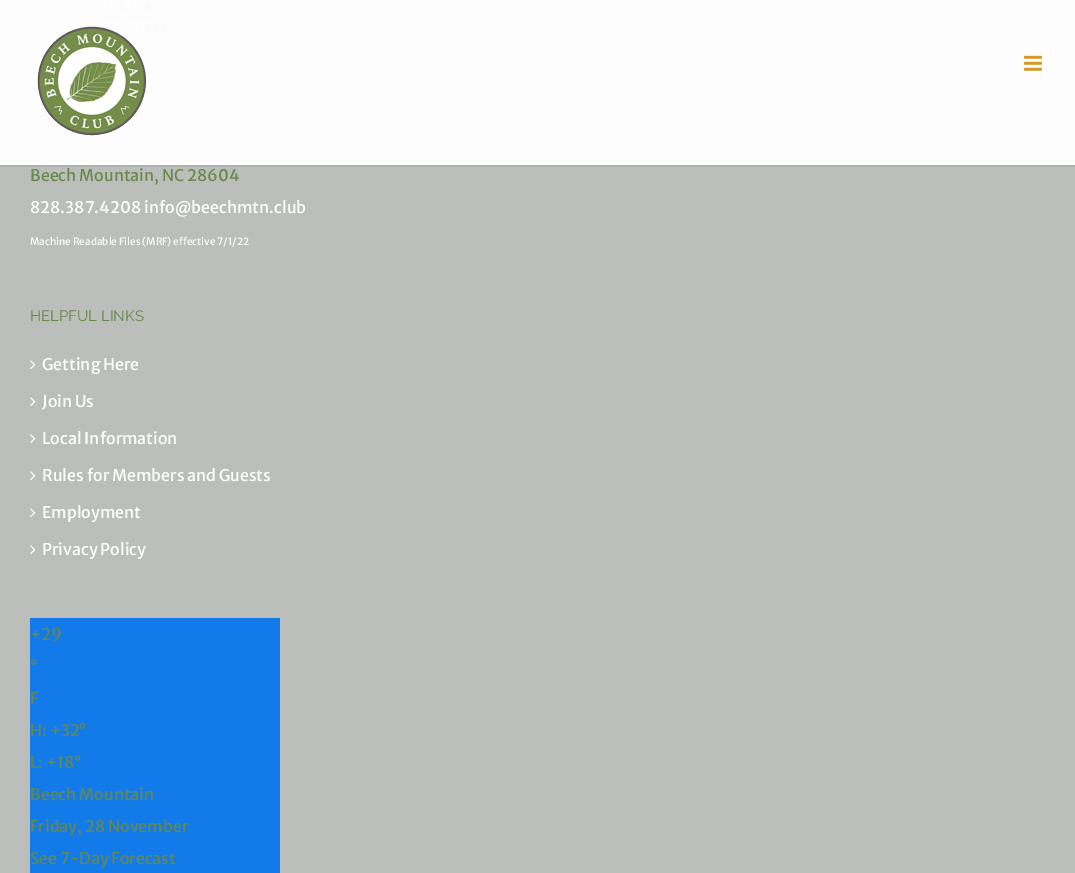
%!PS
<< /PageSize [1075 873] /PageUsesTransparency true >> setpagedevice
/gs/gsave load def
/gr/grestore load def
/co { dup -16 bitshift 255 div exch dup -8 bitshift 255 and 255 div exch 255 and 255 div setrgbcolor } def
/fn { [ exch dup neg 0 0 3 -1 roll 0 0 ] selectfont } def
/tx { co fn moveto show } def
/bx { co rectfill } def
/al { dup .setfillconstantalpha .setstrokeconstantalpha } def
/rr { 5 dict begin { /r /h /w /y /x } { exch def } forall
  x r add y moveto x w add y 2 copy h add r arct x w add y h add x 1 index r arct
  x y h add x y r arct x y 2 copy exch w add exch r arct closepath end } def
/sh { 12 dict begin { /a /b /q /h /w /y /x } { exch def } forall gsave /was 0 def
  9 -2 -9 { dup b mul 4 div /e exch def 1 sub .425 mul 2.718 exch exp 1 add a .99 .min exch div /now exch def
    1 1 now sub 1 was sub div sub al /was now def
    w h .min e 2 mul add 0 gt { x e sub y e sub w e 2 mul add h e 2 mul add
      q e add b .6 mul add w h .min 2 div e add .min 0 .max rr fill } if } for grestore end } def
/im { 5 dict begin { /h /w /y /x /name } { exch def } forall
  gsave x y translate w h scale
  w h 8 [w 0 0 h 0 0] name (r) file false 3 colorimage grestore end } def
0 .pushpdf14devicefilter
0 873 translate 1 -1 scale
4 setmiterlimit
0 0 1075 873 16#BCBEBC bx
0 0 1075 165 16#FDFDFD bx
(media/3.raw) 67 3 130 28 im
gs
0 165 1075 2 rectclip
16#000000 co
0 1 1075 165 0 1.5 .12 sh
gr
(media/1.raw) 37 26 110 110 im
(media/2.raw) 1024 55 18 16 im
(media/4.raw) 30 360 6 9 im
(media/4.raw) 30 397 6 9 im
(media/4.raw) 30 434 6 9 im
(media/4.raw) 30 471 6 9 im
(media/4.raw) 30 508 6 9 im
(media/4.raw) 30 545 6 9 im
30 618 250 255 16#137AE9 bx
(Beech Mountain, NC 28604) 30 181 /MerriweatherSans-Regular 16 16#678849 tx
(828.387.4208 info@beechmtn.club) 30 213 /MerriweatherSans-Regular 16 16#FFFFFF tx
(Machine Readable Files \(MRF\) effective 7/1/22) 30 245 /MerriweatherSans-Regular 10 16#FFFFFF tx
(HELPFUL LINKS) 30 321 /Raleway-Thin 15 16#678849 tx
(Getting Here) 42 370 /MerriweatherSans-Regular 16 16#FFFFFF tx
(Join Us) 42 407 /MerriweatherSans-Regular 16 16#FFFFFF tx
(Local Information) 42 444 /MerriweatherSans-Regular 16 16#FFFFFF tx
(Rules for Members and Guests) 42 481 /MerriweatherSans-Regular 16 16#FFFFFF tx
(Employment) 42 518 /MerriweatherSans-Regular 16 16#FFFFFF tx
(Privacy Policy) 42 555 /MerriweatherSans-Regular 16 16#FFFFFF tx
(+29) 30 640 /MerriweatherSans-Regular 16 16#678849 tx
(°) 30 672 /MerriweatherSans-Regular 16 16#678849 tx
(F) 30 704 /MerriweatherSans-Regular 16 16#678849 tx
(H: +32°) 30 736 /MerriweatherSans-Regular 16 16#678849 tx
(L: +18°) 30 768 /MerriweatherSans-Regular 16 16#678849 tx
(Beech Mountain) 30 800 /MerriweatherSans-Regular 16 16#678849 tx
(Friday, 28 November) 30 832 /MerriweatherSans-Regular 16 16#678849 tx
(See 7-Day Forecast) 30 864 /MerriweatherSans-Regular 16 16#678849 tx
.poppdf14devicefilter showpage
